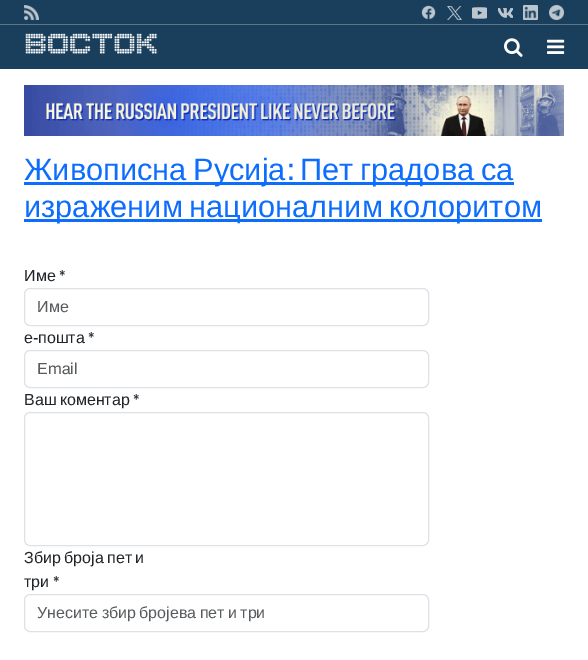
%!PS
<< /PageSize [588 660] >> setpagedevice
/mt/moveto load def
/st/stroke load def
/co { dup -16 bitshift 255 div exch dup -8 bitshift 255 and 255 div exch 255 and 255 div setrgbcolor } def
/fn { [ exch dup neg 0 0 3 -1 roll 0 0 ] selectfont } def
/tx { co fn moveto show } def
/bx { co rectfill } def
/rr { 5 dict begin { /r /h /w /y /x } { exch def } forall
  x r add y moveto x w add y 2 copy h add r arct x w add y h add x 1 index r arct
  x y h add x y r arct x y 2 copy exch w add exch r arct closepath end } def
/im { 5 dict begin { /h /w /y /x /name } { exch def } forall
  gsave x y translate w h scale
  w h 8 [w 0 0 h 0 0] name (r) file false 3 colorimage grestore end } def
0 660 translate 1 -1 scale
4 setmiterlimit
0 0 588 660 16#FFFFFF bx
0 0 588 24 16#1A3F5C bx
0 24 588 1 16#5D778B bx
(media/1.raw) 24 5 15 15 im
(media/2.raw) 421 5 15 15 im
(media/3.raw) 447 6 15 14 im
(media/4.raw) 472 7 15 12 im
(media/5.raw) 498 8 15 10 im
(media/6.raw) 523 5 15 15 im
(media/7.raw) 549 5 15 15 im
0 25 588 44 16#1A3F5C bx
(media/8.raw) 25 33 133 21 im
(media/9.raw) 504 38 19 19 im
(media/10.raw) 547 39 18 15 im
(media/11.raw) 24 85 540 51 im
24 182 490 3 16#0D6EFD bx
24 219 518 3 16#0D6EFD bx
16#DEE2E6 co
24.5 288.5 404 37 5.5 rr st
24.5 350.5 404 37 5.5 rr st
24.5 412.5 404 133 5.5 rr st
24.5 594.5 404 37 5.5 rr st
/LiberationSans-Regular 30.8 fn
16#0D6EFD co
24 180 mt -2 0 32 (Живописна Русија) widthshow
(:) 286 180 /Archivo-Medium 30.8 16#0D6EFD tx
/LiberationSans-Regular 30.8 fn
300 180 mt -2 0 32 (Пет градова са) widthshow
24 217 mt -2 0 32 (израженим националним колоритом) widthshow
(Име) 24 281 /LiberationSans-Regular 16 16#212529 tx
(*) 59 281 /Archivo-Regular 16 16#212529 tx
(Име) 37 312 /LiberationSans-Regular 16 16#595C5F tx
(е) 24 343 /LiberationSans-Regular 16 16#212529 tx
(-) 33 343 /Archivo-Regular 16 16#212529 tx
(пошта) 38 343 /LiberationSans-Regular 16 16#212529 tx
(*) 88 343 /Archivo-Regular 16 16#212529 tx
(Email) 37 374 /Archivo-Regular 16 16#595C5F tx
/LiberationSans-Regular 16 fn
16#212529 co
24 405 mt -1 0 32 (Ваш коментар) widthshow
(*) 133 405 /Archivo-Regular 16 16#212529 tx
/LiberationSans-Regular 16 fn
24 563 mt -1 0 32 (Збир броја пет и) widthshow
(три) 24 587 /LiberationSans-Regular 16 16#212529 tx
(*) 53 587 /Archivo-Regular 16 16#212529 tx
/LiberationSans-Regular 16 fn
16#595C5F co
37 618 mt -1 0 32 (Унесите збир бројева пет и три) widthshow
showpage
